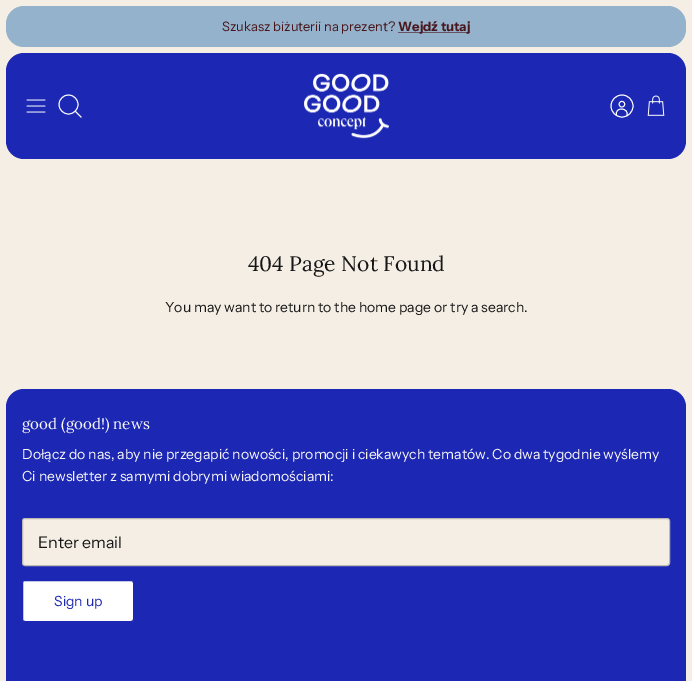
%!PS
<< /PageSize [692 681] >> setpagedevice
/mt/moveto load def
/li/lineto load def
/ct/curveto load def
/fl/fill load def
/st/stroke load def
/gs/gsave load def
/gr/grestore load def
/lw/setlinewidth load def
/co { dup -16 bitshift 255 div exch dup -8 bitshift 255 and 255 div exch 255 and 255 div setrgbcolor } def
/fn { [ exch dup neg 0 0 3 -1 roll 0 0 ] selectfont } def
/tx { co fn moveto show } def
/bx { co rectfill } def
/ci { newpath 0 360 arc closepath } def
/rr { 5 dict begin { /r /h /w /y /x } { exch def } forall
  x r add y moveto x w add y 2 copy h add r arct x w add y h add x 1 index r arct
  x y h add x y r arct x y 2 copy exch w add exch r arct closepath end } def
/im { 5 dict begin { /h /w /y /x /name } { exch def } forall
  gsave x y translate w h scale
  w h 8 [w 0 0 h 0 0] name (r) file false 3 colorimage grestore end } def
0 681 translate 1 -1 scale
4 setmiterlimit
0 0 692 681 16#F4EEE5 bx
16#94B2CB co
6 6 680 41 18 rr fl
398 32 72 1 16#675462 bx
16#1C27B3 co
6 53 680 106 18 rr fl
(media/1.raw) 26 99 20 14 im
16#FFFFFF co
.9 lw
68.5 104.5 9.5 ci st
2 setlinecap
75.5 111.5 mt 81 117 li st
(media/2.raw) 304 73 85 66 im
0 setlinecap
627 116 mt 629.5 107 614 106.5 616.5 115.5 ct st
621.9 104.2 2.8 ci st
622 106 11 ci st
(media/3.raw) 647 95 18 21 im
16#1C27B3 co
6 389 680 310 18 rr fl
16#F4EEE5 co
22.5 518.5 647 47 2.5 rr gs fl gr
16#BDB8B2 co
1 lw
st
16#FFFFFF co
22.5 580.5 111 41 2.5 rr gs fl gr
16#1C27B3 co
st
(Szukasz biżuterii na prezent?) 222 31 /InstrumentSans-Regular 13 16#49161C tx
(Wejdź tutaj) 398 31 /InstrumentSans-Bold 13 16#49161C tx
(404 Page Not Found) 248 271 /Lora-Regular 21 16#171717 tx
(You may want to return to the home page or try a search.) 165 312 /InstrumentSans-Regular 14 16#171717 tx
(good \(good!\) news) 22 429 /Lora-Regular 15.1 16#FBF9F6 tx
(Dołącz do nas, aby nie przegapić nowości, promocji i ciekawych tematów. Co dwa tygodnie wyślemy) 22 459 /InstrumentSans-Regular 14 16#FBF9F6 tx
(Ci newsletter z samymi dobrymi wiadomościami:) 22 481 /InstrumentSans-Regular 14 16#FBF9F6 tx
(Enter email) 38 548 /InstrumentSans-Regular 16 16#171717 tx
(Sign up) 54 606 /InstrumentSans-Regular 14 16#1C27B3 tx
showpage
